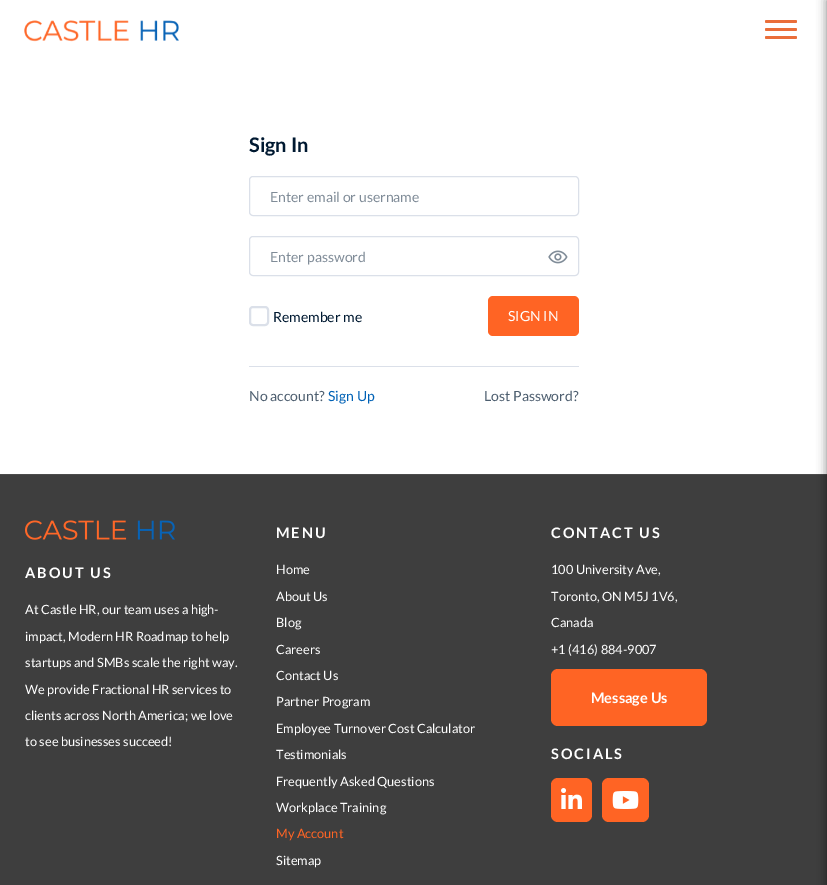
%!PS
<< /PageSize [827 885] /PageUsesTransparency true >> setpagedevice
/mt/moveto load def
/fl/fill load def
/st/stroke load def
/lw/setlinewidth load def
/co { dup -16 bitshift 255 div exch dup -8 bitshift 255 and 255 div exch 255 and 255 div setrgbcolor } def
/fn { [ exch dup neg 0 0 3 -1 roll 0 0 ] selectfont } def
/tx { co fn moveto show } def
/bx { co rectfill } def
/al { dup .setfillconstantalpha .setstrokeconstantalpha } def
/rr { 5 dict begin { /r /h /w /y /x } { exch def } forall
  x r add y moveto x w add y 2 copy h add r arct x w add y h add x 1 index r arct
  x y h add x y r arct x y 2 copy exch w add exch r arct closepath end } def
/sh { 12 dict begin { /a /b /q /h /w /y /x } { exch def } forall gsave /was 0 def
  9 -2 -9 { dup b mul 4 div /e exch def 1 sub .425 mul 2.718 exch exp 1 add a .99 .min exch div /now exch def
    1 1 now sub 1 was sub div sub al /was now def
    w h .min e 2 mul add 0 gt { x e sub y e sub w e 2 mul add h e 2 mul add
      q e add b .6 mul add w h .min 2 div e add .min 0 .max rr fill } if } for grestore end } def
/im { 5 dict begin { /h /w /y /x /name } { exch def } forall
  gsave x y translate w h scale
  w h 8 [w 0 0 h 0 0] name (r) file false 3 colorimage grestore end } def
0 .pushpdf14devicefilter
0 885 translate 1 -1 scale
4 setmiterlimit
0 0 827 885 16#FFFFFF bx
(media/1.raw) 24 20 155 22 im
16#EA6E3A co
765 20 32 3 1.5 rr fl
765 28 32 3 1.5 rr fl
765 36 32 3 1.5 rr fl
0 475 827 410 16#3E3E3E bx
0 474 827 1 16#4C4C4C bx
16#000000 co
827 0 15 885 0 5 .5 sh
16#DBE0E9 co
249.5 176.5 329 39 3.5 rr st
249.5 236.5 329 39 3.5 rr st
(media/2.raw) 548 250 20 14 im
2 lw
250 307 18 18 3 rr st
16#FF6424 co
488 296 91 40 5 rr fl
249 366 330 1 16#DBE0E9 bx
(media/3.raw) 25 520 150 20 im
16#FF6424 co
551 669 156 57 7 rr fl
551 778 41 44 7 rr fl
(media/4.raw) 561 788 21 21 im
602 778 47 44 7 rr fl
(media/5.raw) 612 791 27 18 im
(Sign In) 249 152 /Lato-Bold 20 16#001931 tx
(Enter email or username) 270 202 /Lato-Regular 14 16#808C98 tx
(Enter password) 270 262 /Lato-Regular 14 16#808C98 tx
(Remember me) 273 322 /Lato-Regular 14 16#001931 tx
(SIGN IN) 508 321 /Lato-Regular 14 16#FFFFFF tx
(No account?) 249 401 /Lato-Regular 14 16#4D5E6F tx
(Sign Up) 328 401 /Lato-Regular 14 16#0061B5 tx
(Lost Password?) 484 401 /Lato-Regular 14 16#4D5E6F tx
/Lato-Bold 14.5 fn
16#FFFFFF co
25 578 mt 2 0 (ABOUT US) ashow
(At Castle HR, our team uses a high-) 25 614 /Lato-Regular 12.75 16#FFFFFF tx
(impact, Modern HR Roadmap to help) 25 641 /Lato-Regular 12.75 16#FFFFFF tx
(startups and SMBs scale the right way.) 25 667 /Lato-Regular 12.75 16#FFFFFF tx
(We provide Fractional HR services to) 25 694 /Lato-Regular 12.75 16#FFFFFF tx
(clients across North America; we love) 25 720 /Lato-Regular 12.75 16#FFFFFF tx
(to see businesses succeed!) 25 746 /Lato-Regular 12.75 16#FFFFFF tx
/Lato-Bold 14.5 fn
276 538 mt 2 0 (MENU) ashow
(Home) 276 574 /Lato-Regular 12.75 16#FFFFFF tx
(About Us) 276 601 /Lato-Regular 12.75 16#FFFFFF tx
(Blog) 276 627 /Lato-Regular 12.75 16#FFFFFF tx
(Careers) 276 654 /Lato-Regular 12.75 16#FFFFFF tx
(Contact Us) 276 680 /Lato-Regular 12.75 16#FFFFFF tx
(Partner Program) 276 706 /Lato-Regular 12.75 16#FFFFFF tx
(Employee Turnover Cost Calculator) 276 733 /Lato-Regular 12.75 16#FFFFFF tx
(Testimonials) 276 759 /Lato-Regular 12.75 16#FFFFFF tx
(Frequently Asked Questions) 276 786 /Lato-Regular 12.75 16#FFFFFF tx
(Workplace Training) 276 812 /Lato-Regular 12.75 16#FFFFFF tx
(My Account) 276 838 /Lato-Regular 12.75 16#FF6424 tx
(Sitemap) 276 865 /Lato-Regular 12.75 16#FFFFFF tx
/Lato-Bold 14.5 fn
551 538 mt 2 0 (CONTACT US) ashow
(100 University Ave,) 551 574 /Lato-Regular 12.75 16#FFFFFF tx
(Toronto, ON M5J 1V6,) 551 601 /Lato-Regular 12.75 16#FFFFFF tx
(Canada) 551 627 /Lato-Regular 12.75 16#FFFFFF tx
(+1 \(416\) 884-9007) 551 654 /Lato-Regular 12.75 16#FFFFFF tx
(Message Us) 591 703 /Lato-Bold 14.5 16#FFFFFF tx
551 759 mt 2 0 (SOCIALS) ashow
.poppdf14devicefilter showpage
